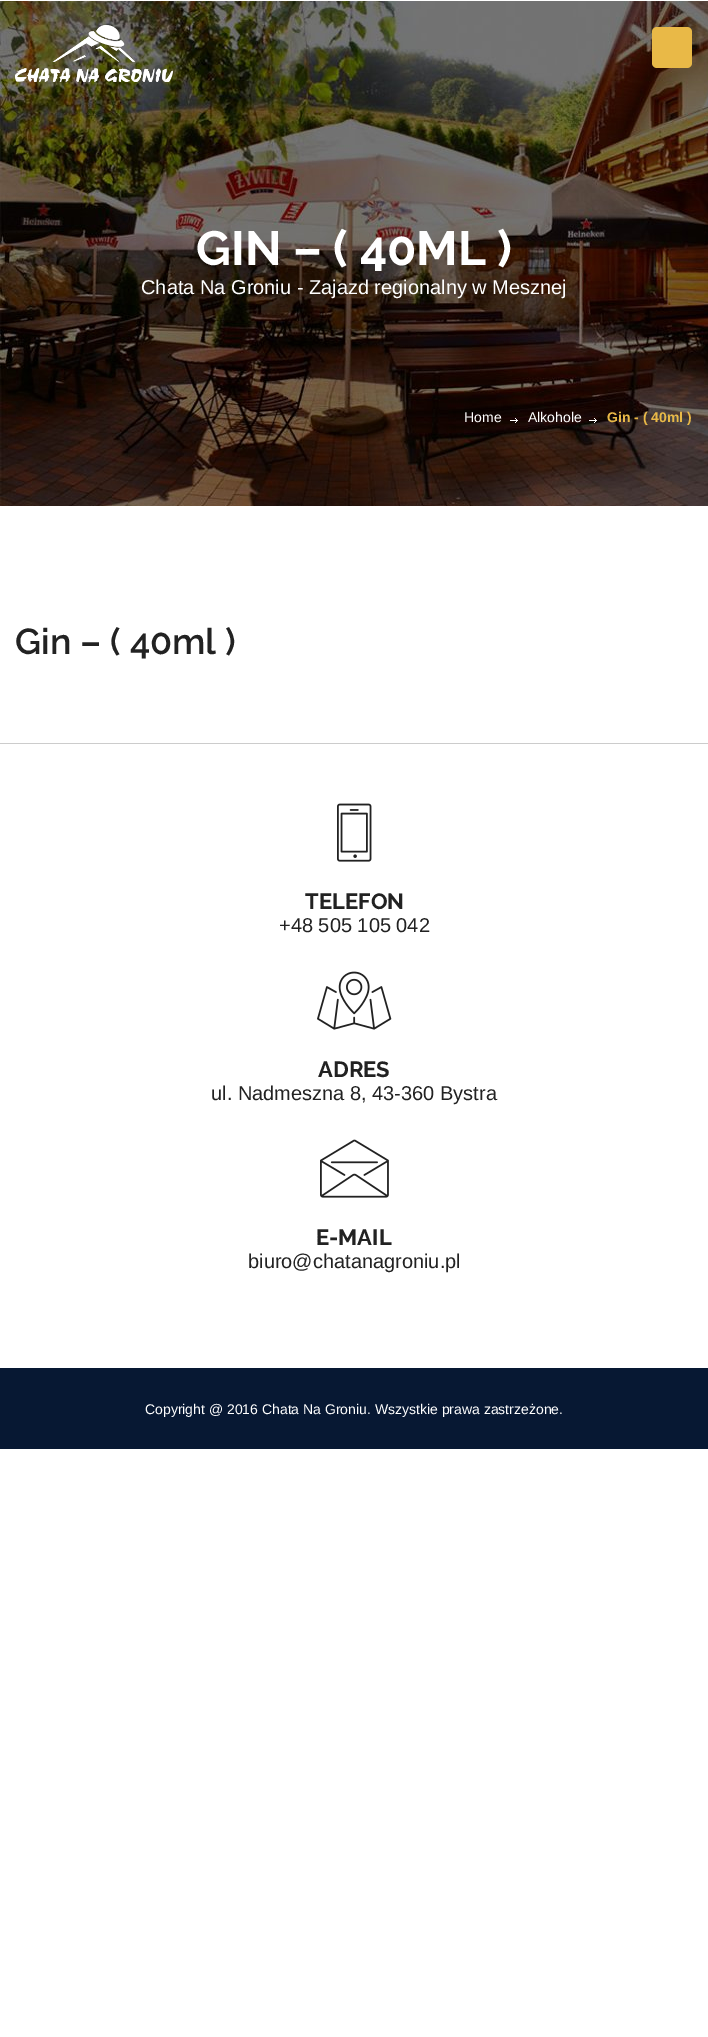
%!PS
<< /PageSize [708 2037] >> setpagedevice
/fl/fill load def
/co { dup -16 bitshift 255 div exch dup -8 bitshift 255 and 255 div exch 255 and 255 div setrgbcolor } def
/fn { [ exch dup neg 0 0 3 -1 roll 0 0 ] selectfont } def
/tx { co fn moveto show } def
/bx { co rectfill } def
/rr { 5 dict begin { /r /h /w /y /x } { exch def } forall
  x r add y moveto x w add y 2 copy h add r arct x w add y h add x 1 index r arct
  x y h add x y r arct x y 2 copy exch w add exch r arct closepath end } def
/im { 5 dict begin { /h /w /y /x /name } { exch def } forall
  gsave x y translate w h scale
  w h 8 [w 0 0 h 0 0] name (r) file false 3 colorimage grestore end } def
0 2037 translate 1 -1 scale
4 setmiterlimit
0 0 708 2037 16#FFFFFF bx
(media/2.raw) 0 1 708 505 im
(media/1.raw) 15 25 158 57 im
16#E9B947 co
652 27 40 41 5 rr fl
(media/3.raw) 510 418 8 5 im
(media/4.raw) 589 418 8 5 im
0 743 708 1 16#CCCCCC bx
(media/5.raw) 337 803 35 59 im
(media/6.raw) 317 971 75 59 im
(media/7.raw) 320 1139 69 59 im
0 1368 708 81 16#071833 bx
(GIN – \( 40ML \)) 196 265 /Raleway-Bold 48 16#FFFFFF tx
(Chata Na Groniu - Zajazd regionalny w Mesznej) 141 294 /LiberationSans-Regular 20 16#FFFFFF tx
(Home) 464 422 /LiberationSans-Regular 14 16#FFFFFF tx
(Alkohole) 528 422 /LiberationSans-Regular 14 16#FFFFFF tx
(Gin - \( 40ml \)) 607 422 /LiberationSans-Bold 14 16#E9B947 tx
(Gin – \( 40ml \)) 15 654 /Raleway-SemiBold 36 16#222222 tx
(TELEFON) 305 909 /Raleway-Bold 22 16#222222 tx
(+48 505 105 042) 279 932 /LiberationSans-Regular 20 16#222222 tx
(ADRES) 318 1077 /Raleway-Bold 22 16#222222 tx
(ul. Nadmeszna 8, 43-360 Bystra) 211 1100 /LiberationSans-Regular 20 16#222222 tx
(E-MAIL) 316 1245 /Raleway-Bold 22 16#222222 tx
(biuro@chatanagroniu.pl) 248 1268 /LiberationSans-Regular 20 16#222222 tx
(Copyright @ 2016 Chata Na Groniu. Wszystkie prawa zastrzeżone.) 145 1414 /LiberationSans-Regular 14 16#FFFFFF tx
showpage
